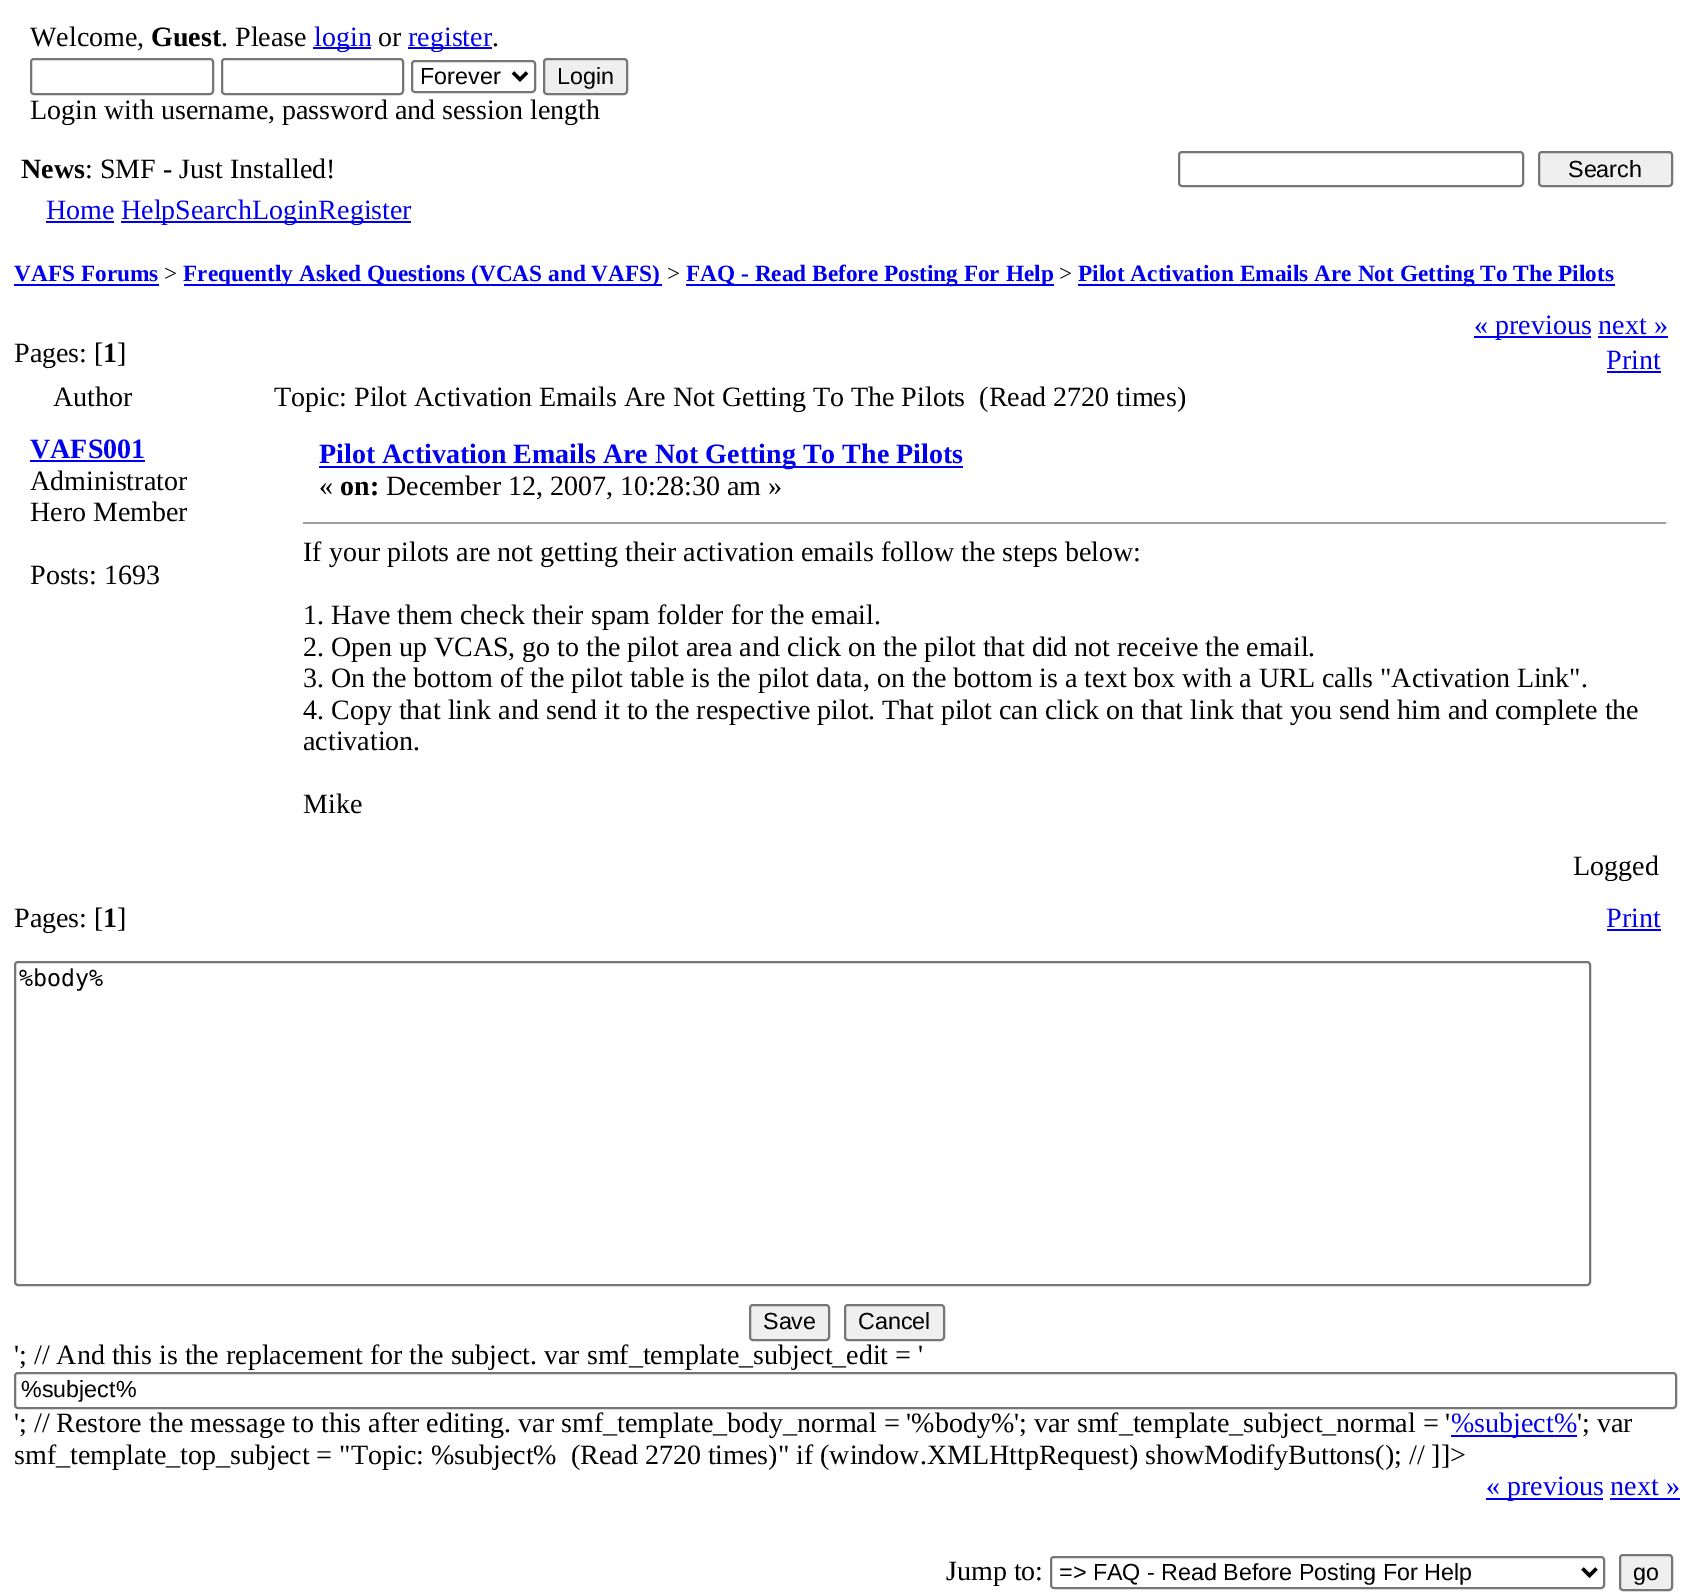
%!PS
<< /PageSize [1693 1596] >> setpagedevice
/mt/moveto load def
/li/lineto load def
/fl/fill load def
/st/stroke load def
/gs/gsave load def
/gr/grestore load def
/lw/setlinewidth load def
/co { dup -16 bitshift 255 div exch dup -8 bitshift 255 and 255 div exch 255 and 255 div setrgbcolor } def
/fn { [ exch dup neg 0 0 3 -1 roll 0 0 ] selectfont } def
/tx { co fn moveto show } def
/bx { co rectfill } def
/rr { 5 dict begin { /r /h /w /y /x } { exch def } forall
  x r add y moveto x w add y 2 copy h add r arct x w add y h add x 1 index r arct
  x y h add x y r arct x y 2 copy exch w add exch r arct closepath end } def
0 1596 translate 1 -1 scale
4 setmiterlimit
0 0 1693 1596 16#FFFFFF bx
313 47 58 2 16#0000EE bx
408 47 84 2 16#0000EE bx
16#767676 co
2 lw
31 59 182 35 3 rr st
222 59 181 35 3 rr st
412 61 123 31 3 rr st
16#000000 co
3.5 lw
513 72.5 mt 520 79.5 li 527 72.5 li st
16#EFEFEF co
544 59 83 35 3 rr gs fl gr
16#767676 co
2 lw
st
1179 152 344 34 3 rr st
16#EFEFEF co
1539 152 133 34 3 rr gs fl gr
16#767676 co
st
46 221 68 2 16#0000EE bx
121 221 290 2 16#0000EE bx
14 284 145 2 16#0000EE bx
184 284 478 2 16#0000EE bx
686 284 368 2 16#0000EE bx
1078 284 537 2 16#0000EE bx
1474 336 117 2 16#0000EE bx
1598 336 70 2 16#0000EE bx
1607 371 54 2 16#0000EE bx
30 460 115 2 16#0000EE bx
319 466 644 2 16#0000EE bx
303 522 1365 2 16#9F9F9F bx
1666 522 2 2 16#EEEEEE bx
1607 929 54 2 16#0000EE bx
16#767676 co
15 962 1575 323 3 rr st
16#EFEFEF co
750 1305 79 35 3 rr gs fl gr
16#767676 co
st
16#EFEFEF co
845 1305 99 35 3 rr gs fl gr
16#767676 co
st
15 1373 1661 35 3 rr st
1451 1435 126 2 16#0000EE bx
1486 1498 117 2 16#0000EE bx
1610 1498 70 2 16#0000EE bx
16#767676 co
1051 1557 553 31 3 rr st
16#000000 co
3.5 lw
1582.5 1568.5 mt 1589.5 1575.5 li 1596.5 1568.5 li st
16#EFEFEF co
1620 1555 52 35 3 rr gs fl gr
16#767676 co
2 lw
st
(Welcome,) 30 46 /LiberationSerif-Regular 28 16#000000 tx
(Guest) 151 46 /LiberationSerif-Bold 28 16#000000 tx
(. Please) 221 46 /LiberationSerif-Regular 28 16#000000 tx
(login) 314 46 /LiberationSerif-Regular 28 16#0000EE tx
(or) 378 46 /LiberationSerif-Regular 28 16#000000 tx
(register) 408 46 /LiberationSerif-Regular 28 16#0000EE tx
(.) 492 46 /LiberationSerif-Regular 28 16#000000 tx
(Forever) 420 84 /LiberationSans-Regular 23.3 16#000000 tx
(Login) 557 84 /LiberationSans-Regular 23.3 16#000000 tx
(Login with username, password and session length) 30 119 /LiberationSerif-Regular 28 16#000000 tx
(News) 21 178 /LiberationSerif-Bold 28 16#000000 tx
(: SMF - Just Installed!) 85 178 /LiberationSerif-Regular 28 16#000000 tx
(Search) 1568 177 /LiberationSans-Regular 23.3 16#000000 tx
(Home) 46 219 /LiberationSerif-Regular 28 16#0000EE tx
(HelpSearchLoginRegister) 121 219 /LiberationSerif-Regular 28 16#0000EE tx
(VAFS Forums) 14 281 /LiberationSerif-Bold 23.3 16#0000EE tx
(>) 164 281 /LiberationSerif-Regular 23.3 16#000000 tx
(Frequently Asked Questions \(VCAS and VAFS\)) 183 281 /LiberationSerif-Bold 23.3 16#0000EE tx
(>) 667 281 /LiberationSerif-Regular 23.3 16#000000 tx
(FAQ - Read Before Posting For Help) 686 281 /LiberationSerif-Bold 23.3 16#0000EE tx
(>) 1059 281 /LiberationSerif-Regular 23.3 16#000000 tx
(Pilot Activation Emails Are Not Getting To The Pilots) 1078 281 /LiberationSerif-Bold 23.3 16#0000EE tx
(Pages: [) 14 362 /LiberationSerif-Regular 28 16#000000 tx
(1) 103 362 /LiberationSerif-Bold 28 16#000000 tx
(]) 117 362 /LiberationSerif-Regular 28 16#000000 tx
(« previous next ») 1474 334 /LiberationSerif-Regular 28 16#0000EE tx
(Print) 1606 369 /LiberationSerif-Regular 28 16#0000EE tx
(Author) 53 406 /LiberationSerif-Regular 28 16#000000 tx
(Topic: Pilot Activation Emails Are Not Getting To The Pilots  \(Read 2720 times\)) 274 406 /LiberationSerif-Regular 28 16#000000 tx
(VAFS001) 30 458 /LiberationSerif-Bold 28 16#0000EE tx
(Administrator) 30 490 /LiberationSerif-Regular 28 16#000000 tx
(Hero Member) 30 521 /LiberationSerif-Regular 28 16#000000 tx
(Posts: 1693) 30 584 /LiberationSerif-Regular 28 16#000000 tx
(Pilot Activation Emails Are Not Getting To The Pilots) 319 463 /LiberationSerif-Bold 28 16#0000EE tx
(«) 319 495 /LiberationSerif-Regular 28 16#000000 tx
(on:) 340 495 /LiberationSerif-Bold 28 16#000000 tx
(December 12, 2007, 10:28:30 am ») 386 495 /LiberationSerif-Regular 28 16#000000 tx
(If your pilots are not getting their activation emails follow the steps below:) 303 561 /LiberationSerif-Regular 28 16#000000 tx
(1. Have them check their spam folder for the email.) 303 624 /LiberationSerif-Regular 28 16#000000 tx
(2. Open up VCAS, go to the pilot area and click on the pilot that did not receive the email.) 303 656 /LiberationSerif-Regular 28 16#000000 tx
(3. On the bottom of the pilot table is the pilot data, on the bottom is a text box with a URL calls "Activation Link".) 303 687 /LiberationSerif-Regular 28 16#000000 tx
(4. Copy that link and send it to the respective pilot. That pilot can click on that link that you send him and complete the) 303 719 /LiberationSerif-Regular 28 16#000000 tx
(activation.) 303 750 /LiberationSerif-Regular 28 16#000000 tx
(Mike) 303 813 /LiberationSerif-Regular 28 16#000000 tx
(Logged) 1573 875 /LiberationSerif-Regular 28 16#000000 tx
(Pages: [) 14 927 /LiberationSerif-Regular 28 16#000000 tx
(1) 103 927 /LiberationSerif-Bold 28 16#000000 tx
(]) 117 927 /LiberationSerif-Regular 28 16#000000 tx
(Print) 1606 927 /LiberationSerif-Regular 28 16#0000EE tx
(%body%) 19 986 /DejaVuSansMono-Regular 23.3 16#000000 tx
(Save) 763 1329 /LiberationSans-Regular 23.3 16#000000 tx
(Cancel) 858 1329 /LiberationSans-Regular 23.3 16#000000 tx
('; // And this is the replacement for the subject. var smf_template_subject_edit = ') 14 1364 /LiberationSerif-Regular 28 16#000000 tx
(%subject%) 21 1397 /LiberationSans-Regular 23.3 16#000000 tx
('; // Restore the message to this after editing. var smf_template_body_normal = '%body%'; var smf_template_subject_normal = ') 14 1432 /LiberationSerif-Regular 28 16#000000 tx
(%subject%) 1451 1432 /LiberationSerif-Regular 28 16#0000EE tx
('; var) 1577 1432 /LiberationSerif-Regular 28 16#000000 tx
(smf_template_top_subject = "Topic: %subject%  \(Read 2720 times\)" if \(window.XMLHttpRequest\) showModifyButtons\(\); // ]]>) 14 1464 /LiberationSerif-Regular 28 16#000000 tx
(« previous next ») 1486 1495 /LiberationSerif-Regular 28 16#0000EE tx
(Jump to:) 946 1580 /LiberationSerif-Regular 28 16#000000 tx
(=> FAQ - Read Before Posting For Help) 1059 1580 /LiberationSans-Regular 23.3 16#000000 tx
(go) 1633 1580 /LiberationSans-Regular 23.3 16#000000 tx
showpage
